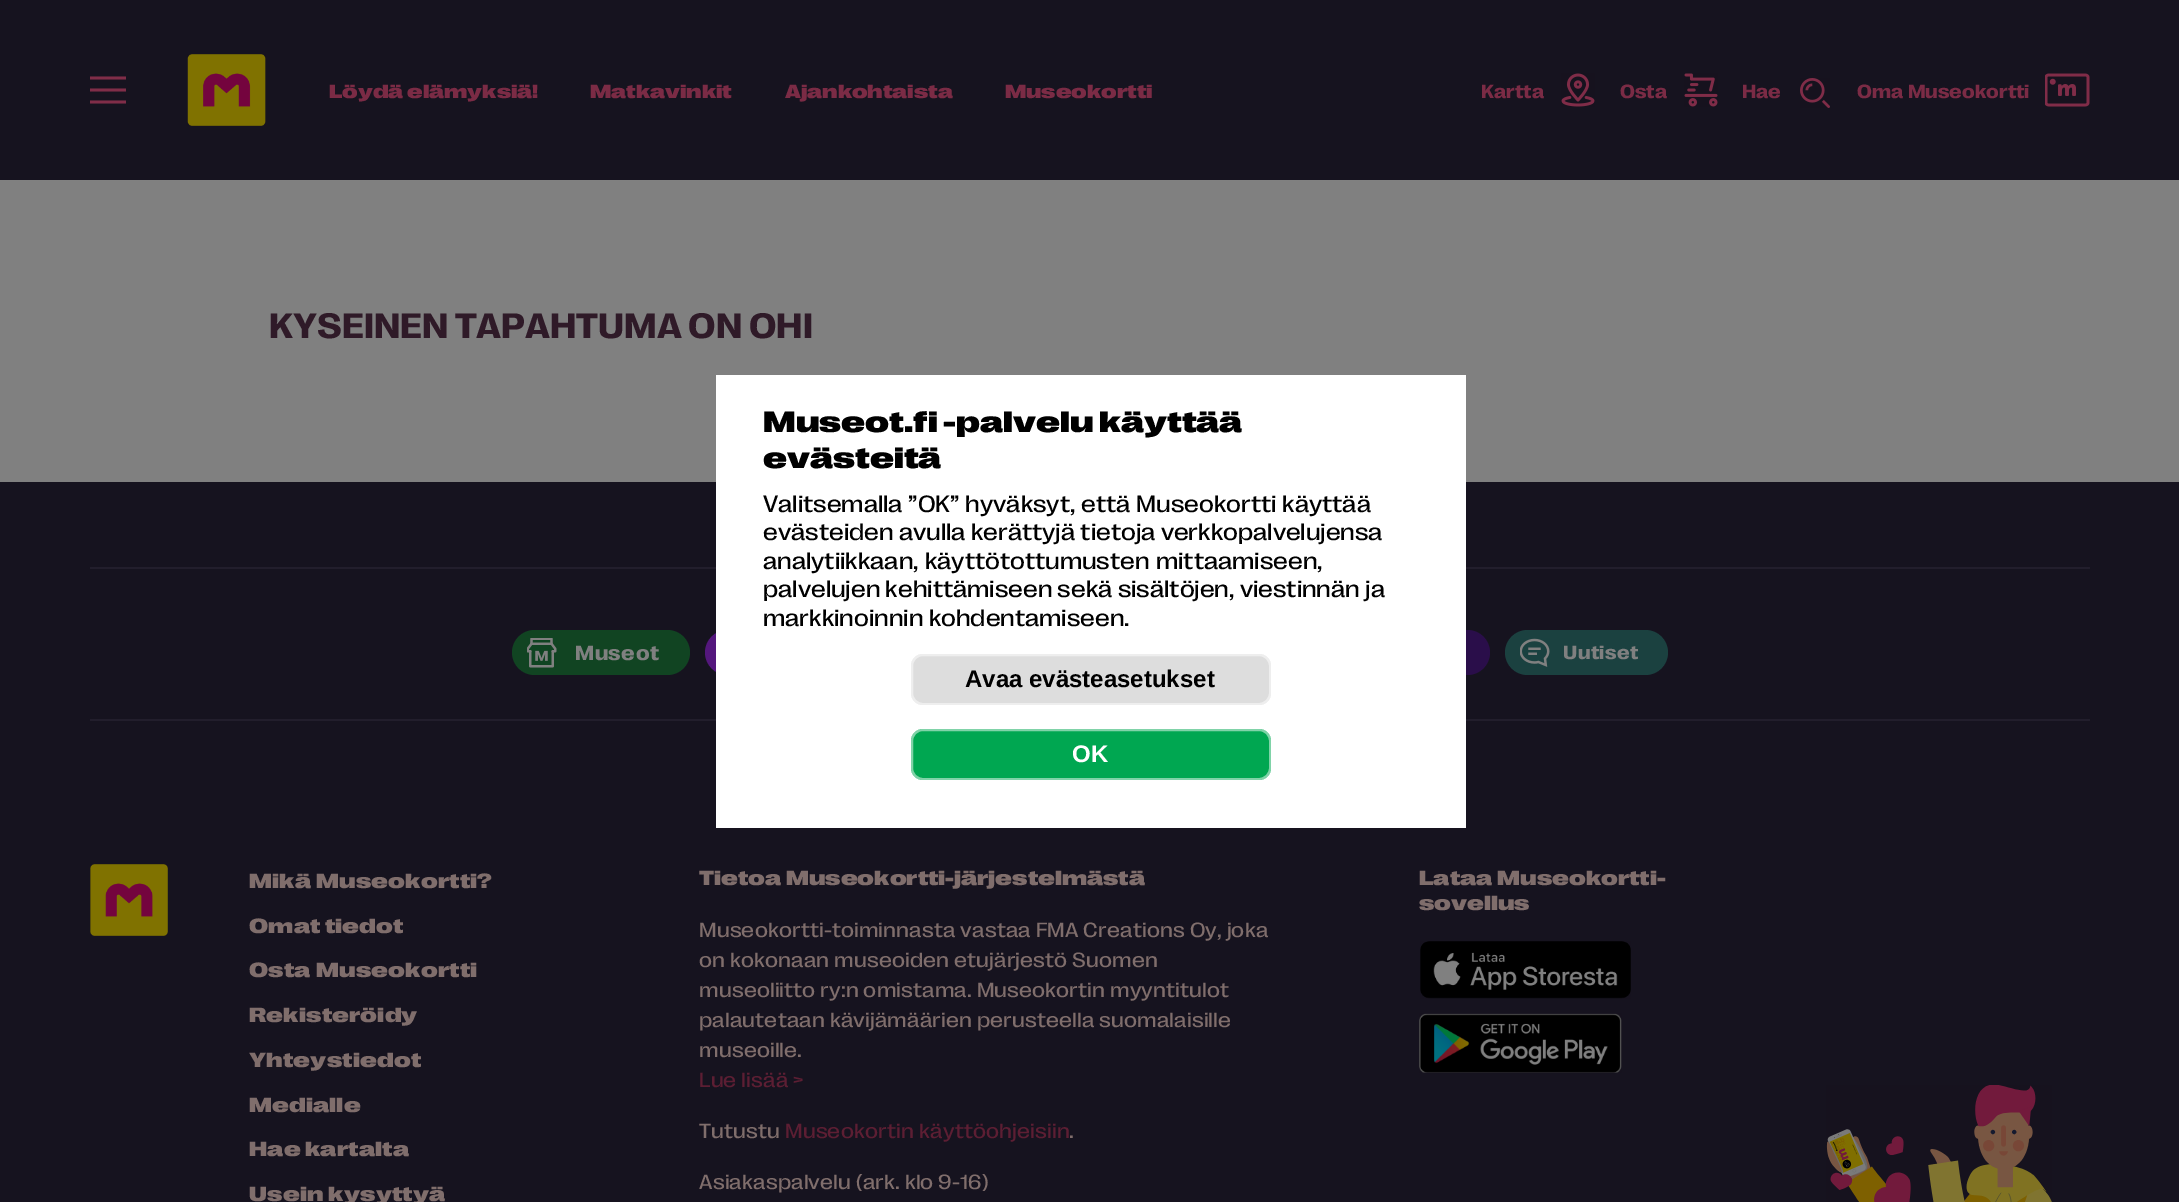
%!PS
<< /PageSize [2179 1202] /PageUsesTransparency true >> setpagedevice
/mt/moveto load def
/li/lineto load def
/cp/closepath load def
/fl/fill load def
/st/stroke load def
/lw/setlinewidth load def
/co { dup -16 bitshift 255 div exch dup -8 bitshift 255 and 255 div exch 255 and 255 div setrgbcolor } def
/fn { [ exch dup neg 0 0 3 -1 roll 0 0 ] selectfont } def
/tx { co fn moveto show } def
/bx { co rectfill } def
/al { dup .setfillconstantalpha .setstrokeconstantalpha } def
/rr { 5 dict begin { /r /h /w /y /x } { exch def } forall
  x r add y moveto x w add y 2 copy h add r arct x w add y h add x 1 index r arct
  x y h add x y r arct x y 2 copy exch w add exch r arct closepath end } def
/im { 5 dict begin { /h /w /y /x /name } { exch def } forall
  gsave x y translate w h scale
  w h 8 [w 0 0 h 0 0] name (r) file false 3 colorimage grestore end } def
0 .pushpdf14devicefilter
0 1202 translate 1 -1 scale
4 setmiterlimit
0 0 2179 1202 16#808080 bx
0 0 2179 180 16#16131F bx
16#802D48 co
90 76.5 mt 126 76.5 li 126 79.5 li 90 79.5 li cp 90 88.5 mt 126 88.5 li 126 91.5 li 90 91.5 li cp 90 100.5 mt 126 100.5 li 126 103.5 li 90 103.5 li cp fl
(media/1.raw) 187 54 79 72 im
(media/2.raw) 1561 73 34 34 im
(media/3.raw) 1684 73 34 34 im
(media/4.raw) 1800 78 30 30 im
(media/5.raw) 2045 73 45 34 im
0 482 2179 720 16#16131F bx
90 567 2000 2 16#221E2C bx
90 719 2000 2 16#221E2C bx
16#54177D co
705 630 183 45 22.5 rr fl
16#2A0E4A co
1355 630 135 45 22.5 rr fl
716 375 750 453 16#FFFFFF bx
16#DDDDDD co
911 654 360 51 12 rr fl
0.5 al
16#FFFFFF co
2 lw
912 655 358 49 11 rr st
1 al
16#00A751 co
911 729 360 51 12 rr fl
0.5 al
16#FFFFFF co
912 730 358 49 11 rr st
1 al
16#114422 co
512 630 178 45 22.5 rr fl
(media/6.raw) 527 638 30 30 im
16#1B4140 co
1505 630 163 45 22.5 rr fl
(media/7.raw) 1520 638 30 29 im
(media/8.raw) 1826 1085 226 117 im
(media/9.raw) 90 864 78 72 im
(media/10.raw) 1420 941 211 58 im
(media/11.raw) 1419 1013 203 60 im
(Löydä elämyksiä!) 329 98 /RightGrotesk-ExtraBold 19.5 16#7B2B45 tx
(Matkavinkit) 590 98 /RightGrotesk-ExtraBold 19.5 16#7B2B45 tx
(Ajankohtaista) 785 98 /RightGrotesk-ExtraBold 19.5 16#7B2B45 tx
(Museokortti) 1005 98 /RightGrotesk-ExtraBold 19.5 16#7B2B45 tx
(Kartta) 1481 98 /RightGrotesk-Bold 19.5 16#7B2B45 tx
(Osta) 1620 98 /RightGrotesk-Bold 19.5 16#7B2B45 tx
(Hae) 1742 98 /RightGrotesk-Bold 19.5 16#7B2B45 tx
1857 98 mt 1 0 32 (Oma Museokortti) widthshow
(KYSEINEN TAPAHTUMA ON OHI) 269 338 /RightGrotesk-Bold 36 16#2F1A28 tx
(Museot.fi -palvelu käyttää) 763 432 /RightGrotesk-ExtraBold 30 16#000000 tx
(evästeitä) 763 468 /RightGrotesk-ExtraBold 30 16#000000 tx
/RightGrotesk-Regular 24 fn
763 512 mt .5 0 32 (Valitsemalla ”OK” hyväksyt, että Museokortti käyttää) widthshow
(evästeiden avulla kerättyjä tietoja verkkopalvelujensa) 763 540 /RightGrotesk-Regular 24 16#000000 tx
763 569 mt 1 0 32 (analytiikkaan, käyttötottumusten mittaamiseen,) widthshow
(palvelujen kehittämiseen sekä sisältöjen, viestinnän ja) 763 597 /RightGrotesk-Regular 24 16#000000 tx
(markkinoinnin kohdentamiseen.) 763 626 /RightGrotesk-Regular 24 16#000000 tx
(Avaa evästeasetukset) 965 687 /LiberationSans-Bold 24 16#000000 tx
(OK) 1072 762 /LiberationSans-Bold 24 16#FFFFFF tx
/RightGrotesk-Bold 21 fn
16#808080 co
575 660 mt .5 0 (Museot) ashow
/RightGrotesk-Bold 19.5 fn
1563 659 mt .5 0 (Uutiset) ashow
/RightGrotesk-ExtraBold 21 fn
16#806E6C co
249 888 mt 1 0 32 .18 0 (Mikä Museokortti?) awidthshow
249 933 mt .18 0 (Omat tiedot) ashow
249 977 mt 1 0 32 .18 0 (Osta Museokortti) awidthshow
249 1022 mt .18 0 (Rekisteröidy) ashow
249 1067 mt .18 0 (Yhteystiedot) ashow
249 1112 mt .18 0 (Medialle) ashow
249 1156 mt .18 0 (Hae kartalta) ashow
249 1201 mt 1 0 32 .18 0 (Usein kysyttyä) awidthshow
699 885 mt 1 0 32 (Tietoa Museokortti-järjestelmästä) widthshow
/RightGrotesk-Regular 21 fn
699 937 mt .18 0 (Museokortti-toiminnasta vastaa FMA Creations Oy, joka) ashow
699 967 mt .18 0 (on kokonaan museoiden etujärjestö Suomen) ashow
699 997 mt .18 0 (museoliitto ry:n omistama. Museokortin myyntitulot) ashow
699 1027 mt .18 0 (palautetaan kävijämäärien perusteella suomalaisille) ashow
699 1057 mt .18 0 (museoille.) ashow
16#5D1E33 co
699 1087 mt .18 0 (Lue lisää >) ashow
16#806E6C co
699 1138 mt .18 0 (Tutustu) ashow
16#5D1E33 co
785 1138 mt 1 0 32 .18 0 (Museokortin käyttöohjeisiin) awidthshow
16#806E6C co
1069 1138 mt .18 0 (.) ashow
699 1189 mt .18 0 (Asiakaspalvelu \(ark. klo 9-16\)) ashow
/RightGrotesk-ExtraBold 21 fn
1419 885 mt 1 0 32 (Lataa Museokortti-) widthshow
(sovellus) 1419 910 /RightGrotesk-ExtraBold 21 16#806E6C tx
.poppdf14devicefilter showpage
